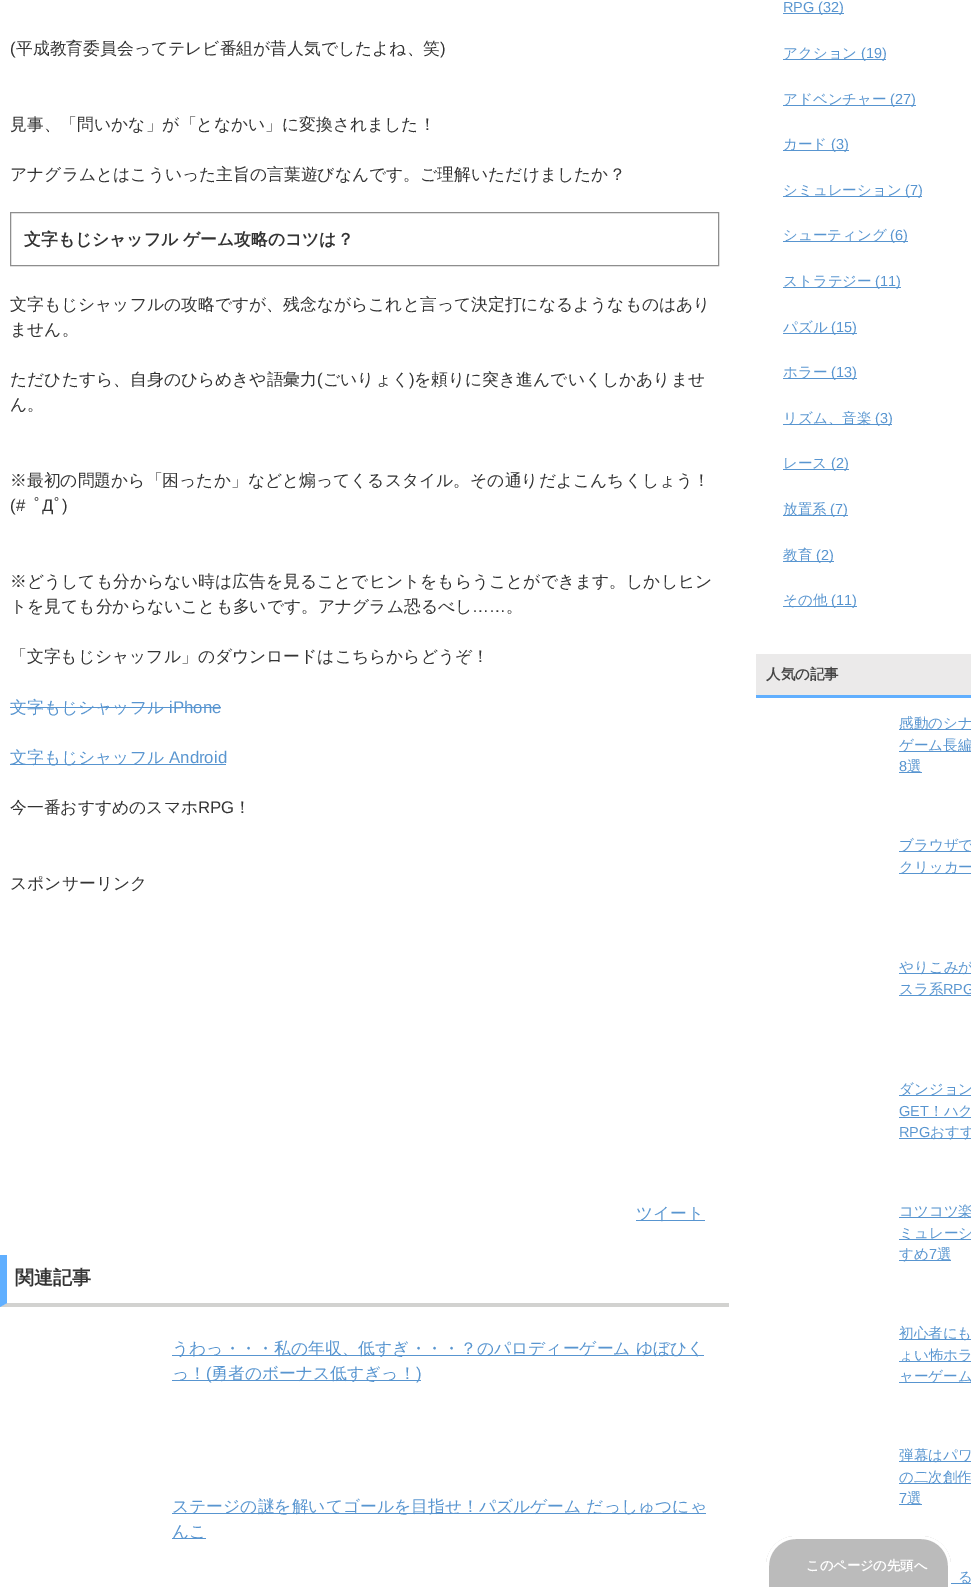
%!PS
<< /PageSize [971 1587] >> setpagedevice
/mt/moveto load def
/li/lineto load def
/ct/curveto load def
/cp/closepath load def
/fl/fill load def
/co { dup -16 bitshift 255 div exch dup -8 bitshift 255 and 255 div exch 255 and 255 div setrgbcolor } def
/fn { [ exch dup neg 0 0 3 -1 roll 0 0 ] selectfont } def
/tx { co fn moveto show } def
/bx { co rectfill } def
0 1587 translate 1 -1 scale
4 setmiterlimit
0 0 971 1587 16#FFFFFF bx
16#8E8E8E co
10.5 212.5 708 53 rectstroke
10 707 211 1 16#5895D0 bx
10 764 216 1 16#5895D0 bx
636 1220 69 1 16#5895D0 bx
16#D2D2D0 co
729 1307 mt 0 1307 li 7 1303 li 729 1303 li cp fl
16#60AFFF co
0 1307 mt 0 1255 li 7 1255 li 7 1303 li cp fl
172 1355 532 1 16#5895D0 bx
172 1380 249 1 16#5895D0 bx
172 1513 534 1 16#5895D0 bx
172 1538 34 1 16#5895D0 bx
783 13 61 1 16#5895D0 bx
783 59 103 1 16#5895D0 bx
783 105 133 1 16#5895D0 bx
783 150 66 1 16#5895D0 bx
783 196 139 1 16#5895D0 bx
783 241 125 1 16#5895D0 bx
783 287 118 1 16#5895D0 bx
783 333 74 1 16#5895D0 bx
783 378 74 1 16#5895D0 bx
783 424 109 1 16#5895D0 bx
783 469 66 1 16#5895D0 bx
783 515 65 1 16#5895D0 bx
783 561 51 1 16#5895D0 bx
783 606 74 1 16#5895D0 bx
756 654 215 41 16#EBEAEA bx
756 695 215 3 16#60AFFF bx
899 729 72 1 16#5895D0 bx
899 751 72 1 16#5895D0 bx
899 772 23 1 16#5895D0 bx
899 851 72 1 16#5895D0 bx
899 873 72 1 16#5895D0 bx
899 973 72 1 16#5895D0 bx
899 995 72 1 16#5895D0 bx
899 1095 72 1 16#5895D0 bx
899 1117 72 1 16#5895D0 bx
899 1138 72 1 16#5895D0 bx
899 1217 72 1 16#5895D0 bx
899 1239 72 1 16#5895D0 bx
899 1260 52 1 16#5895D0 bx
899 1339 72 1 16#5895D0 bx
899 1361 72 1 16#5895D0 bx
899 1382 72 1 16#5895D0 bx
899 1461 72 1 16#5895D0 bx
899 1483 72 1 16#5895D0 bx
899 1504 23 1 16#5895D0 bx
951 1583 20 1 16#5895D0 bx
16#BBBBBB co
796 1536 mt 921 1536 li 937.5 1536 951 1549.5 951 1566 ct 951 1587 li 766 1587 li 766 1566 li 766 1549.5 779.5 1536 796 1536 ct cp fl
16#FFFFFF co
796 1536 mt 921 1536 li 938 1536 951 1549 951 1566 ct 951 1587 li 766 1587 li 766 1566 li 766 1549 779 1536 796 1536 ct cp 796 1539 mt 921 1539 li 936 1539 948 1551 948 1566 ct 948 1587 li 769 1587 li 769 1566 li 769 1551 781 1539 796 1539 ct cp eofill
(\() 10 54 /LiberationSans-Regular 16.8 16#333333 tx
(平成教育委員会ってテレビ番組が昔人気でしたよね、笑) 16 54 /WenQuanYiZenHei-Medium 16.8 16#333333 tx
(\)) 440 54 /LiberationSans-Regular 16.8 16#333333 tx
(見事、「問いかな」が「となかい」に変換されました！) 10 130 /WenQuanYiZenHei-Medium 16.8 16#333333 tx
(アナグラムとはこういった主旨の言葉遊びなんです。ご理解いただけましたか？) 10 180 /WenQuanYiZenHei-Medium 16.8 16#333333 tx
(文字もじシャッフル ゲーム攻略のコツは？) 24 245 /WenQuanYiZenHei-Bold 16.8 16#333333 tx
(文字もじシャッフルの攻略ですが、残念ながらこれと言って決定打になるようなものはあり) 10 310 /WenQuanYiZenHei-Medium 16.8 16#333333 tx
(ません。) 10 335 /WenQuanYiZenHei-Medium 16.8 16#333333 tx
(ただひたすら、自身のひらめきや語彙力) 10 385 /WenQuanYiZenHei-Medium 16.8 16#333333 tx
(\() 317 385 /LiberationSans-Regular 16.8 16#333333 tx
(ごいりょく) 323 385 /WenQuanYiZenHei-Medium 16.8 16#333333 tx
(\)) 409 385 /LiberationSans-Regular 16.8 16#333333 tx
(を頼りに突き進んでいくしかありませ) 414 385 /WenQuanYiZenHei-Medium 16.8 16#333333 tx
(ん。) 10 410 /WenQuanYiZenHei-Medium 16.8 16#333333 tx
(※最初の問題から「困ったか」などと煽ってくるスタイル。その通りだよこんちくしょう！) 10 486 /WenQuanYiZenHei-Medium 16.8 16#333333 tx
(\(#) 10 511 /LiberationSans-Regular 16.8 16#333333 tx
(ﾟ) 34 511 /IPAPGothic-Regular 16.8 16#333333 tx
(Д) 42 511 /LiberationSans-Regular 16.8 16#333333 tx
(ﾟ) 54 511 /IPAPGothic-Regular 16.8 16#333333 tx
(\)) 62 511 /LiberationSans-Regular 16.8 16#333333 tx
(※どうしても分からない時は広告を見ることでヒントをもらうことができます。しかしヒン) 10 587 /WenQuanYiZenHei-Medium 16.8 16#333333 tx
(トを見ても分からないことも多いです。アナグラム恐るべし) 10 612 /WenQuanYiZenHei-Medium 16.8 16#333333 tx
(……) 472 612 /LiberationSans-Regular 16.8 16#333333 tx
(。) 506 612 /WenQuanYiZenHei-Medium 16.8 16#333333 tx
(「文字もじシャッフル」のダウンロードはこちらからどうぞ！) 10 662 /WenQuanYiZenHei-Medium 16.8 16#333333 tx
(文字もじシャッフル) 10 713 /WenQuanYiZenHei-Medium 16.8 16#5895D0 tx
(iPhone) 169 713 /LiberationSans-Regular 16.8 16#5895D0 tx
(文字もじシャッフル) 10 763 /WenQuanYiZenHei-Medium 16.8 16#5895D0 tx
(Android) 169 763 /LiberationSans-Regular 16.8 16#5895D0 tx
(今一番おすすめのスマホ) 10 813 /WenQuanYiZenHei-Medium 16.8 16#333333 tx
(RPG) 198 813 /LiberationSans-Regular 16.8 16#333333 tx
(！) 234 813 /WenQuanYiZenHei-Medium 16.8 16#333333 tx
(スポンサーリンク) 10 889 /WenQuanYiZenHei-Medium 16.8 16#333333 tx
(ツイート) 636 1219 /WenQuanYiZenHei-Medium 16.8 16#5895D0 tx
(関連記事) 15 1284 /WenQuanYiZenHei-Bold 19 16#333333 tx
(うわっ・・・私の年収、低すぎ・・・？のパロディーゲーム ゆぼひく) 172 1354 /WenQuanYiZenHei-Medium 16.8 16#5895D0 tx
(っ！) 172 1379 /WenQuanYiZenHei-Medium 16.8 16#5895D0 tx
(\() 206 1379 /LiberationSans-Regular 16.8 16#5895D0 tx
(勇者のボーナス低すぎっ！) 211 1379 /WenQuanYiZenHei-Medium 16.8 16#5895D0 tx
(\)) 416 1379 /LiberationSans-Regular 16.8 16#5895D0 tx
(ステージの謎を解いてゴールを目指せ！パズルゲーム だっしゅつにゃ) 172 1512 /WenQuanYiZenHei-Medium 16.8 16#5895D0 tx
(んこ) 172 1537 /WenQuanYiZenHei-Medium 16.8 16#5895D0 tx
(RPG \(32\)) 783 12 /LiberationSans-Regular 14.5 16#5895D0 tx
(アクション) 783 58 /WenQuanYiZenHei-Medium 14.5 16#5895D0 tx
(\(19\)) 861 58 /LiberationSans-Regular 14.5 16#5895D0 tx
(アドベンチャー) 783 104 /WenQuanYiZenHei-Medium 14.5 16#5895D0 tx
(\(27\)) 890 104 /LiberationSans-Regular 14.5 16#5895D0 tx
(カード) 783 149 /WenQuanYiZenHei-Medium 14.5 16#5895D0 tx
(\(3\)) 831 149 /LiberationSans-Regular 14.5 16#5895D0 tx
(シミュレーション) 783 195 /WenQuanYiZenHei-Medium 14.5 16#5895D0 tx
(\(7\)) 905 195 /LiberationSans-Regular 14.5 16#5895D0 tx
(シューティング) 783 240 /WenQuanYiZenHei-Medium 14.5 16#5895D0 tx
(\(6\)) 890 240 /LiberationSans-Regular 14.5 16#5895D0 tx
(ストラテジー) 783 286 /WenQuanYiZenHei-Medium 14.5 16#5895D0 tx
(\(11\)) 875 286 /LiberationSans-Regular 14.5 16#5895D0 tx
(パズル) 783 332 /WenQuanYiZenHei-Medium 14.5 16#5895D0 tx
(\(15\)) 831 332 /LiberationSans-Regular 14.5 16#5895D0 tx
(ホラー) 783 377 /WenQuanYiZenHei-Medium 14.5 16#5895D0 tx
(\(13\)) 831 377 /LiberationSans-Regular 14.5 16#5895D0 tx
(リズム、音楽) 783 423 /WenQuanYiZenHei-Medium 14.5 16#5895D0 tx
(\(3\)) 875 423 /LiberationSans-Regular 14.5 16#5895D0 tx
(レース) 783 468 /WenQuanYiZenHei-Medium 14.5 16#5895D0 tx
(\(2\)) 831 468 /LiberationSans-Regular 14.5 16#5895D0 tx
(放置系) 783 514 /WenQuanYiZenHei-Medium 14.5 16#5895D0 tx
(\(7\)) 830 514 /LiberationSans-Regular 14.5 16#5895D0 tx
(教育) 783 560 /WenQuanYiZenHei-Medium 14.5 16#5895D0 tx
(\(2\)) 816 560 /LiberationSans-Regular 14.5 16#5895D0 tx
(その他) 783 605 /WenQuanYiZenHei-Medium 14.5 16#5895D0 tx
(\(11\)) 831 605 /LiberationSans-Regular 14.5 16#5895D0 tx
(人気の記事) 766 679 /WenQuanYiZenHei-Bold 14.5 16#454545 tx
(感動のシナ) 899 728 /WenQuanYiZenHei-Medium 14.5 16#5895D0 tx
(ゲーム長編) 899 750 /WenQuanYiZenHei-Medium 14.5 16#5895D0 tx
(8) 899 771 /LiberationSans-Regular 14.5 16#5895D0 tx
(選) 907 771 /WenQuanYiZenHei-Medium 14.5 16#5895D0 tx
(ブラウザで) 899 850 /WenQuanYiZenHei-Medium 14.5 16#5895D0 tx
(クリッカー) 899 872 /WenQuanYiZenHei-Medium 14.5 16#5895D0 tx
(やりこみが) 899 972 /WenQuanYiZenHei-Medium 14.5 16#5895D0 tx
(スラ系) 899 994 /WenQuanYiZenHei-Medium 14.5 16#5895D0 tx
(RPG) 943 994 /LiberationSans-Regular 14.5 16#5895D0 tx
(ダンジョン) 899 1094 /WenQuanYiZenHei-Medium 14.5 16#5895D0 tx
(GET) 899 1116 /LiberationSans-Regular 14.5 16#5895D0 tx
(！ハク) 929 1116 /WenQuanYiZenHei-Medium 14.5 16#5895D0 tx
(RPG) 899 1137 /LiberationSans-Regular 14.5 16#5895D0 tx
(おすす) 930 1137 /WenQuanYiZenHei-Medium 14.5 16#5895D0 tx
(コツコツ楽) 899 1216 /WenQuanYiZenHei-Medium 14.5 16#5895D0 tx
(ミュレーシ) 899 1238 /WenQuanYiZenHei-Medium 14.5 16#5895D0 tx
(すめ) 899 1259 /WenQuanYiZenHei-Medium 14.5 16#5895D0 tx
(7) 929 1259 /LiberationSans-Regular 14.5 16#5895D0 tx
(選) 937 1259 /WenQuanYiZenHei-Medium 14.5 16#5895D0 tx
(初心者にも) 899 1338 /WenQuanYiZenHei-Medium 14.5 16#5895D0 tx
(ょい怖ホラ) 899 1360 /WenQuanYiZenHei-Medium 14.5 16#5895D0 tx
(ャーゲーム) 899 1381 /WenQuanYiZenHei-Medium 14.5 16#5895D0 tx
(弾幕はパワ) 899 1460 /WenQuanYiZenHei-Medium 14.5 16#5895D0 tx
(の二次創作) 899 1482 /WenQuanYiZenHei-Medium 14.5 16#5895D0 tx
(7) 899 1503 /LiberationSans-Regular 14.5 16#5895D0 tx
(選) 907 1503 /WenQuanYiZenHei-Medium 14.5 16#5895D0 tx
(る) 958 1582 /WenQuanYiZenHei-Medium 14.5 16#5895D0 tx
(このページの先頭へ) 806 1570 /WenQuanYiZenHei-Bold 13.25 16#FFFFFF tx
showpage
